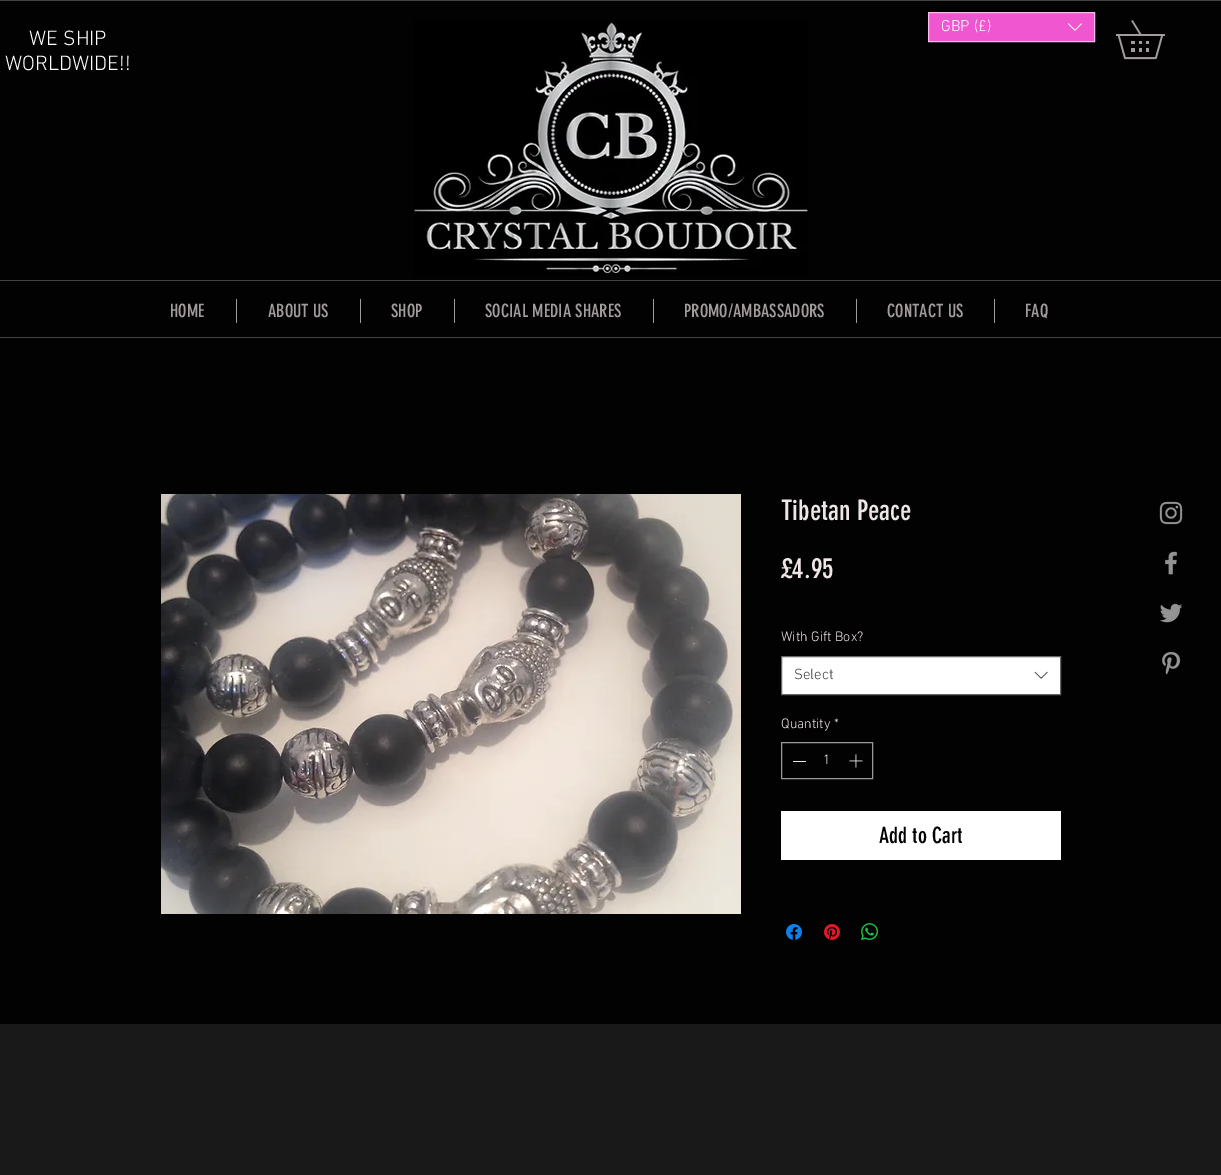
%!PS
<< /PageSize [1221 1175] >> setpagedevice
/mt/moveto load def
/li/lineto load def
/cp/closepath load def
/fl/fill load def
/st/stroke load def
/gs/gsave load def
/gr/grestore load def
/co { dup -16 bitshift 255 div exch dup -8 bitshift 255 and 255 div exch 255 and 255 div setrgbcolor } def
/fn { [ exch dup neg 0 0 3 -1 roll 0 0 ] selectfont } def
/tx { co fn moveto show } def
/bx { co rectfill } def
/im { 5 dict begin { /h /w /y /x /name } { exch def } forall
  gsave x y translate w h scale
  w h 8 [w 0 0 h 0 0] name (r) file false 3 colorimage grestore end } def
0 1175 translate 1 -1 scale
4 setmiterlimit
0 0 1221 1175 16#020202 bx
0 0 1221 1 16#424242 bx
16#F056CF co
928.5 12.5 mt 1094.5 12.5 li 1094.5 41.5 li 928.5 41.5 li cp gs fl gr
16#F9BBEC co
st
(media/1.raw) 1067 23 15 8 im
(media/2.raw) 1116 20 49 40 im
(media/3.raw) 414 20 394 256 im
0 280 1221 1 16#424242 bx
236 299 1 24 16#A29C9C bx
360 299 1 24 16#A29C9C bx
454 299 1 24 16#A29C9C bx
653 299 1 24 16#A29C9C bx
856 299 1 24 16#A29C9C bx
994 299 1 24 16#A29C9C bx
0 337 1221 1 16#424242 bx
(media/4.raw) 161 494 580 420 im
16#FFFFFF co
781.5 656.5 mt 1060.5 656.5 li 1060.5 694.5 li 781.5 694.5 li cp gs fl gr
16#666666 co
st
(media/5.raw) 1034 671 14 8 im
16#9A9A9A co
781.5 742.5 91 36 rectstroke
793 761 13 1 16#EEE6E6 bx
(media/6.raw) 849 754 14 14 im
781 811 280 49 16#FFFFFF bx
(media/7.raw) 786 924 16 16 im
(media/8.raw) 824 924 16 16 im
(media/9.raw) 861 923 17 17 im
(media/10.raw) 1159 501 24 24 im
(media/11.raw) 1165 551 12 24 im
(media/12.raw) 1160 603 23 20 im
(media/13.raw) 1161 651 20 24 im
0 1024 1221 151 16#1A1919 bx
(GBP \(£\)) 941 31 /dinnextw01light-Light 16 16#FFFFFF tx
(WE SHIP) 29 45 /dinnextw01light-Light 21 16#FFFFFF tx
(WORLDWIDE!!) 5 70 /dinnextw01light-Light 21 16#FFFFFF tx
(HOME) 170 317 /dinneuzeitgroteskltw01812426-Regular 18 16#A29C9C tx
(ABOUT US) 268 317 /dinneuzeitgroteskltw01812426-Regular 18 16#A29C9C tx
(SHOP) 391 317 /dinneuzeitgroteskltw01812426-Regular 18 16#A29C9C tx
(SOCIAL MEDIA SHARES) 485 317 /dinneuzeitgroteskltw01812426-Regular 18 16#A29C9C tx
(PROMO/AMBASSADORS) 684 317 /dinneuzeitgroteskltw01812426-Regular 18 16#A29C9C tx
(CONTACT US) 887 317 /dinneuzeitgroteskltw01812426-Regular 18 16#A29C9C tx
(FAQ) 1025 317 /dinneuzeitgroteskltw01812426-Regular 18 16#A29C9C tx
(Tibetan Peace) 781 520 /dinneuzeitgroteskltw01812426-Regular 28 16#EEE6E6 tx
(£4.95) 781 578 /dinneuzeitgroteskltw01812426-Regular 28 16#EEE6E6 tx
(With Gift Box?) 781 641 /dinnextw01light-Light 14 16#EEE6E6 tx
(Select) 794 679 /dinnextw01light-Light 15 16#444444 tx
(Quantity) 781 728 /dinnextw01light-Light 14 16#EEE6E6 tx
(*) 834 728 /dinnextw01light-Light 14 16#EEE6E6 tx
(1) 823 764 /dinnextw01light-Light 14 16#EEE6E6 tx
(Add to Cart) 879 843 /dinneuzeitgroteskltw01812426-Regular 22 16#020202 tx
showpage
